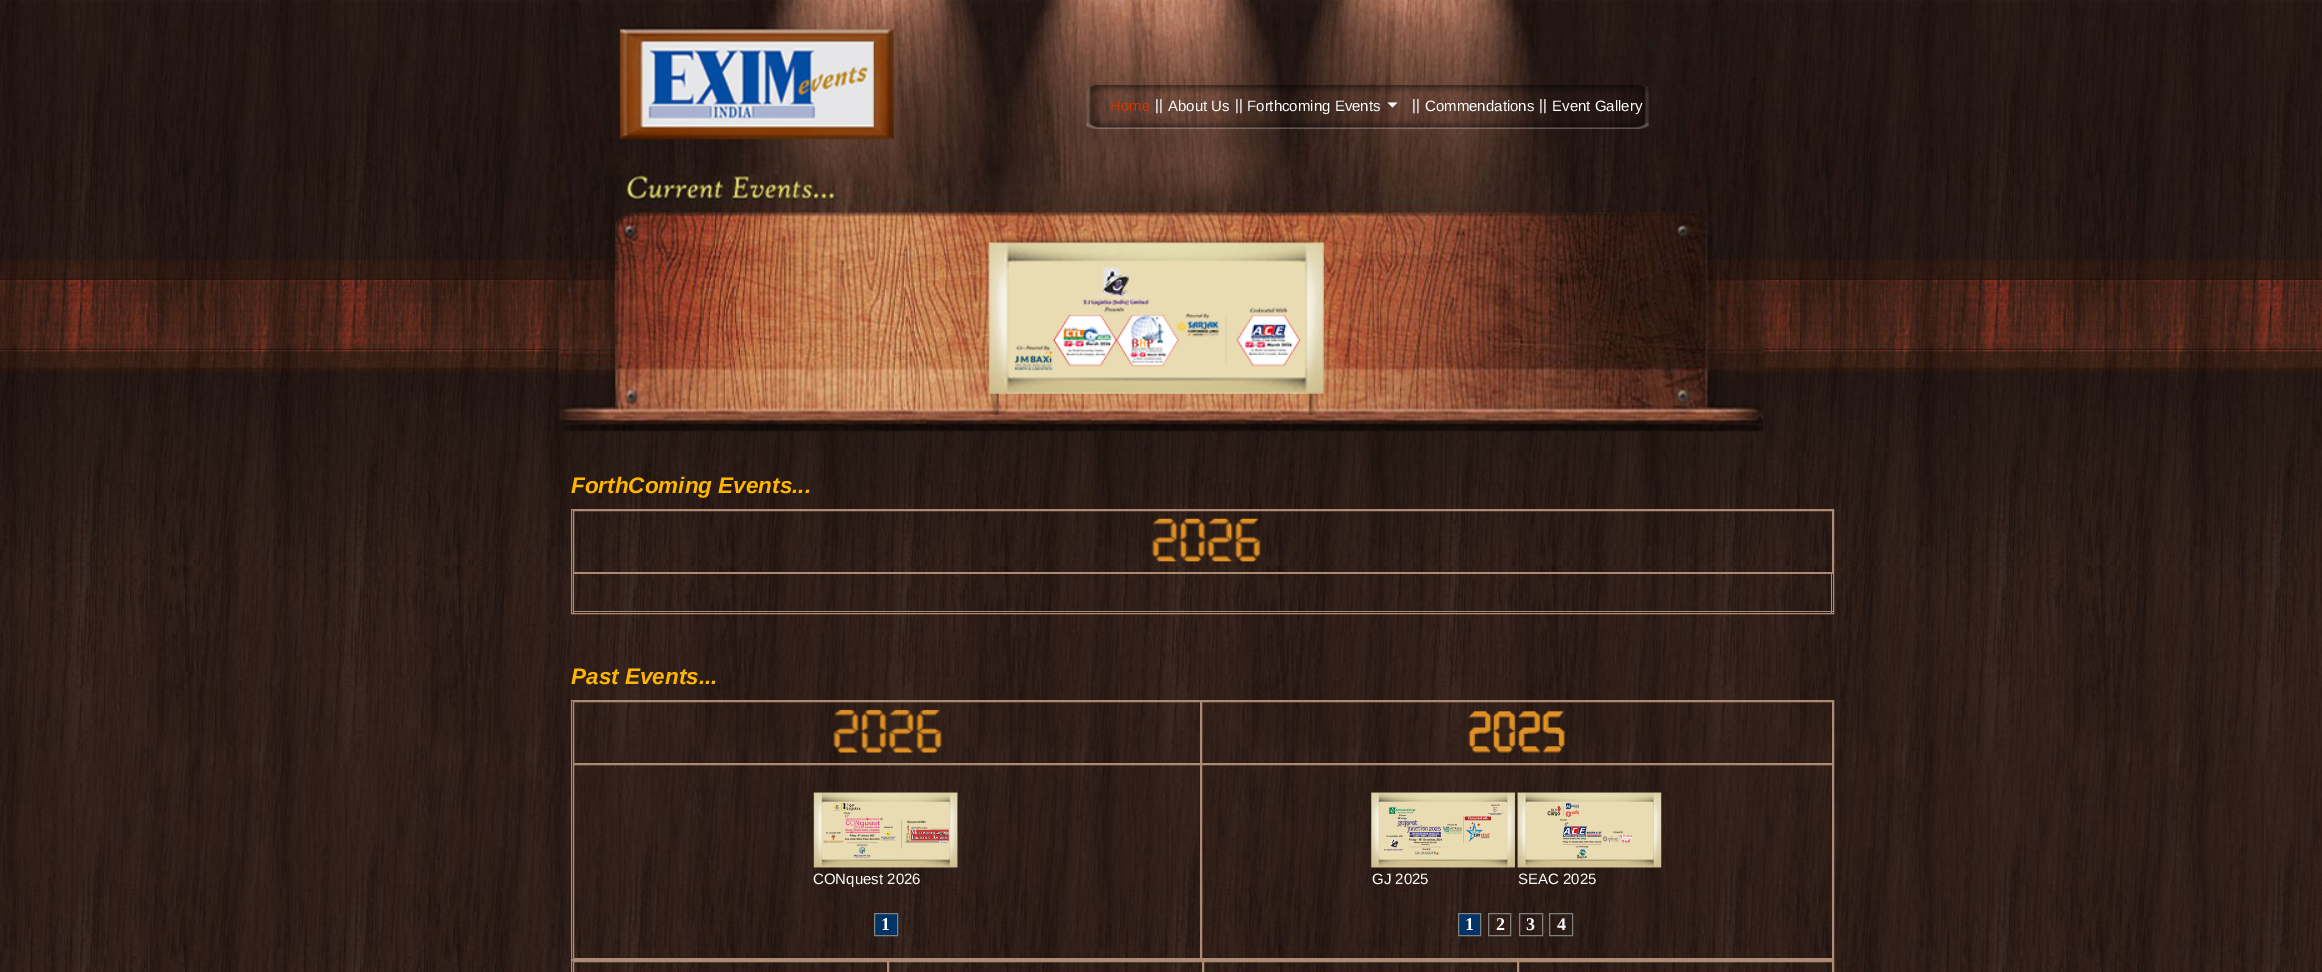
%!PS
<< /PageSize [2322 972] >> setpagedevice
/mt/moveto load def
/li/lineto load def
/cp/closepath load def
/fl/fill load def
/st/stroke load def
/gs/gsave load def
/gr/grestore load def
/co { dup -16 bitshift 255 div exch dup -8 bitshift 255 and 255 div exch 255 and 255 div setrgbcolor } def
/fn { [ exch dup neg 0 0 3 -1 roll 0 0 ] selectfont } def
/tx { co fn moveto show } def
/bx { co rectfill } def
/im { 5 dict begin { /h /w /y /x /name } { exch def } forall
  gsave x y translate w h scale
  w h 8 [w 0 0 h 0 0] name (r) file false 3 colorimage grestore end } def
0 972 translate 1 -1 scale
4 setmiterlimit
0 0 2322 972 16#FFFFFF bx
(media/1.raw) 0 566 2322 406 im
(media/2.raw) 0 0 2322 566 im
(media/3.raw) 558 0 1206 432 im
(media/4.raw) 1086 85 563 44 im
1387.5 102.5 mt 1397.5 102.5 li 1392.5 107.5 li cp fl
(media/5.raw) 990 236 328 179 im
(media/6.raw) 988 242 336 152 im
16#AC8B72 co
571.5 509.5 1262 104 rectstroke
573.5 510.5 1259 62 rectstroke
(media/7.raw) 1152 518 109 44 im
573 573 1260 1 16#AC8B72 bx
1831 573 1 40 16#AC8B72 bx
573 611 1260 1 16#AC8B72 bx
573 573 1 40 16#AC8B72 bx
571.5 700.5 1262 259 rectstroke
573.5 701.5 627 62 rectstroke
(media/8.raw) 833 709 109 44 im
1201.5 701.5 631 62 rectstroke
(media/9.raw) 1468 711 98 42 im
573.5 764.5 627 194 rectstroke
(media/10.raw) 813 792 145 76 im
16#003366 co
874.5 913.5 mt 897.5 913.5 li 897.5 935.5 li 874.5 935.5 li cp gs fl gr
16#808080 co
st
16#AC8B72 co
1201.5 764.5 631 194 rectstroke
(media/11.raw) 1371 792 144 76 im
(media/12.raw) 1517 792 145 76 im
16#003366 co
1458.5 913.5 mt 1480.5 913.5 li 1480.5 935.5 li 1458.5 935.5 li cp gs fl gr
16#808080 co
st
1488.5 913.5 22 22 rectstroke
1519.5 913.5 23 22 rectstroke
1549.5 913.5 23 22 rectstroke
16#AC8B72 co
571.5 960.5 1262 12 rectstroke
573.5 961.5 314 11 rectstroke
888.5 961.5 314 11 rectstroke
1203.5 961.5 314 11 rectstroke
1518.5 961.5 314 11 rectstroke
(Home) 1110 111 /LiberationSans-Regular 15 16#D23600 tx
(||) 1155 110 /LiberationSans-Regular 15 16#FFFFFF tx
(About Us) 1168 111 /LiberationSans-Regular 15 16#FFFFFF tx
(||) 1235 110 /LiberationSans-Regular 15 16#FFFFFF tx
(Forthcoming Events) 1247 111 /LiberationSans-Regular 15 16#FFFFFF tx
(||) 1412 110 /LiberationSans-Regular 15 16#FFFFFF tx
(Commendations) 1425 111 /LiberationSans-Regular 15 16#FFFFFF tx
(||) 1539 110 /LiberationSans-Regular 15 16#FFFFFF tx
(Event Gallery) 1552 111 /LiberationSans-Regular 15 16#FFFFFF tx
(ForthComing Events...) 571 493 /LiberationSans-BoldItalic 22.5 16#FFB600 tx
(Past Events...) 571 684 /LiberationSans-BoldItalic 22.5 16#FFB600 tx
(CONquest 2026) 813 884 /LiberationSans-Regular 15 16#FFFFFF tx
(1) 881 930 /LiberationSerif-Bold 18 16#FFFFFF tx
(GJ 2025) 1372 884 /LiberationSans-Regular 15 16#FFFFFF tx
(SEAC 2025) 1518 884 /LiberationSans-Regular 15 16#FFFFFF tx
(1) 1465 930 /LiberationSerif-Bold 18 16#FFFFFF tx
(2) 1496 930 /LiberationSerif-Bold 18 16#FFFFFF tx
(3) 1526 930 /LiberationSerif-Bold 18 16#FFFFFF tx
(4) 1557 930 /LiberationSerif-Bold 18 16#FFFFFF tx
showpage
